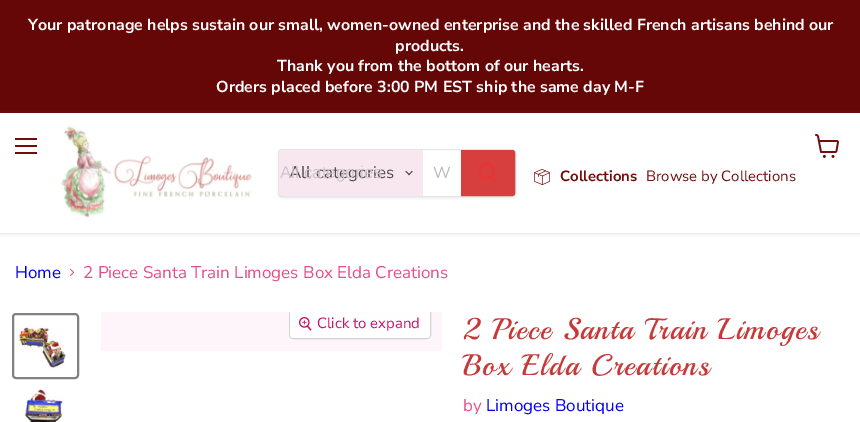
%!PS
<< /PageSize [860 422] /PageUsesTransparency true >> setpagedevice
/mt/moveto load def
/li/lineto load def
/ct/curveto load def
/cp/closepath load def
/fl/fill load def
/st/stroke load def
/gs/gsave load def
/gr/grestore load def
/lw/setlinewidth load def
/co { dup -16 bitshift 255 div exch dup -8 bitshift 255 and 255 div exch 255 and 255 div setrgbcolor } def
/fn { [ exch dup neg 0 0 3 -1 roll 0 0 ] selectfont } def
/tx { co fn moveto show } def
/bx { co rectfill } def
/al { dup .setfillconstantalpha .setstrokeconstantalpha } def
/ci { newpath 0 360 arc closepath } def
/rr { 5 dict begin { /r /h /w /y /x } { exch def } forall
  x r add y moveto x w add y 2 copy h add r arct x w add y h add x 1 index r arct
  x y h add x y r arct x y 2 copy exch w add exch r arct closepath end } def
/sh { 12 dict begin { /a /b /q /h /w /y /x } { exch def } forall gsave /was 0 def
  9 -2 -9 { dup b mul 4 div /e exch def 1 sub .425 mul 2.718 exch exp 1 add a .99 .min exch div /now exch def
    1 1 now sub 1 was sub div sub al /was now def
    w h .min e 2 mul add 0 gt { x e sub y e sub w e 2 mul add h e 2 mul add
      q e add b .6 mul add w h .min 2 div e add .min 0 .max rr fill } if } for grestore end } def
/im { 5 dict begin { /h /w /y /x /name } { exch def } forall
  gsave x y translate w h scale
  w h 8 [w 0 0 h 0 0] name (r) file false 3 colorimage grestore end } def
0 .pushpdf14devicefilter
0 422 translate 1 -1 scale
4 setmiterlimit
0 0 860 422 16#FFFFFF bx
0 0 860 113 16#660707 bx
gs
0 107 mt 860 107 li 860 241 li 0 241 li cp 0 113 mt 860 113 li 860 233 li 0 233 li cp eoclip newpath
16#808080 co
0 114 860 120 0 2 .25 sh
gr
15 138 22 2 16#700D0D bx
15 145 22 2 16#700D0D bx
15 152 22 2 16#700D0D bx
(media/1.raw) 815 134 24 24 im
(media/2.raw) 61 126 191 92 im
gs
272 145 mt 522 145 li 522 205 li 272 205 li cp 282 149 mt 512 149 li 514 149 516 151 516 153 ct 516 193 li 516 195 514 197 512 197 ct 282 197 li 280 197 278 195 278 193 ct 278 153 li 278 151 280 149 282 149 ct cp eoclip newpath
16#808080 co
278 151 238 48 4 1.5 .11 sh
gr
0.2 al
16#808080 co
278.5 149.5 237 47 3.5 rr st
1 al
16#F9E7F0 co
282 150 mt 423 150 li 423 196 li 282 196 li 280.5 196 279 194.5 279 193 ct 279 153 li 279 151.5 280.5 150 282 150 ct cp fl
(media/3.raw) 405 170 8 6 im
16#D73F3F co
461.5 150.5 mt 512 150.5 li 513.5 150.5 514.5 151.5 514.5 153 ct 514.5 193 li 514.5 194.5 513.5 195.5 512 195.5 ct 461.5 195.5 li cp gs fl gr
st
16#EB3232 co
1.7 lw
1 setlinecap
496.5 181.5 mt 491.5 176.5 li st
0 setlinecap
486.5 171 7 ci st
(media/4.raw) 534 169 16 16 im
(media/5.raw) 70 268 5 8 im
16#818181 co
2 lw
13 314 65 64 3 rr st
(media/6.raw) 15 326 51 46 im
(media/7.raw) 22 389 42 33 im
101 312 341 39 16#FDF5F9 bx
gs
101 312 341 39 rectclip
16#D7D0D4 co
1 lw
289.5 308.5 141 30 3.5 rr st
gr
0.9 al
16#FFFFFF co
290 312 mt 430 312 li 430 335 li 430 336.5 428.5 338 427 338 ct 293 338 li 291.5 338 290 336.5 290 335 ct cp fl
1 al
(media/8.raw) 299 317 13 14 im
(Your patronage helps sustain our small, women-owned enterprise and the skilled French artisans behind our) 28 30 /NunitoSans-Bold 15.95 16#FFFFFF tx
(products.) 395 51 /NunitoSans-Bold 15.95 16#FFFFFF tx
(Thank you from the bottom of our hearts.) 277 71 /NunitoSans-Bold 15.95 16#FFFFFF tx
(Orders placed before 3:00 PM EST ship the same day M-F) 216 92 /NunitoSans-Bold 15.95 16#FFFFFF tx
(All categories) 289 178 /NunitoSans-Regular 17 16#4D4D4D tx
(All categories) 280 178 /LiberationSans-Regular 17 16#D2C4CB tx
(W) 433 178 /NunitoSans-Regular 16 16#B8B8B8 tx
(Collections) 560 181 /NunitoSans-Bold 14.9 16#700D0D tx
(Browse by Collections) 646 181 /NunitoSans-Regular 14.9 16#700D0D tx
(Home) 15 278 /NunitoSans-Regular 17 16#0000EE tx
(2 Piece Santa Train Limoges Box Elda Creations) 83 278 /NunitoSans-Regular 17 16#E54D87 tx
(Click to expand) 317 328 /NunitoSans-Regular 14.9 16#C60F69 tx
/Playball-Regular 29.75 fn
16#C73939 co
463 339 mt 1.5 0 (2 Piece Santa Train Limoges) ashow
463 375 mt 1.5 0 (Box Elda Creations) ashow
(by) 463 411 /NunitoSans-Regular 17 16#E54D87 tx
(Limoges Boutique) 486 411 /NunitoSans-Regular 17 16#0000EE tx
.poppdf14devicefilter showpage
